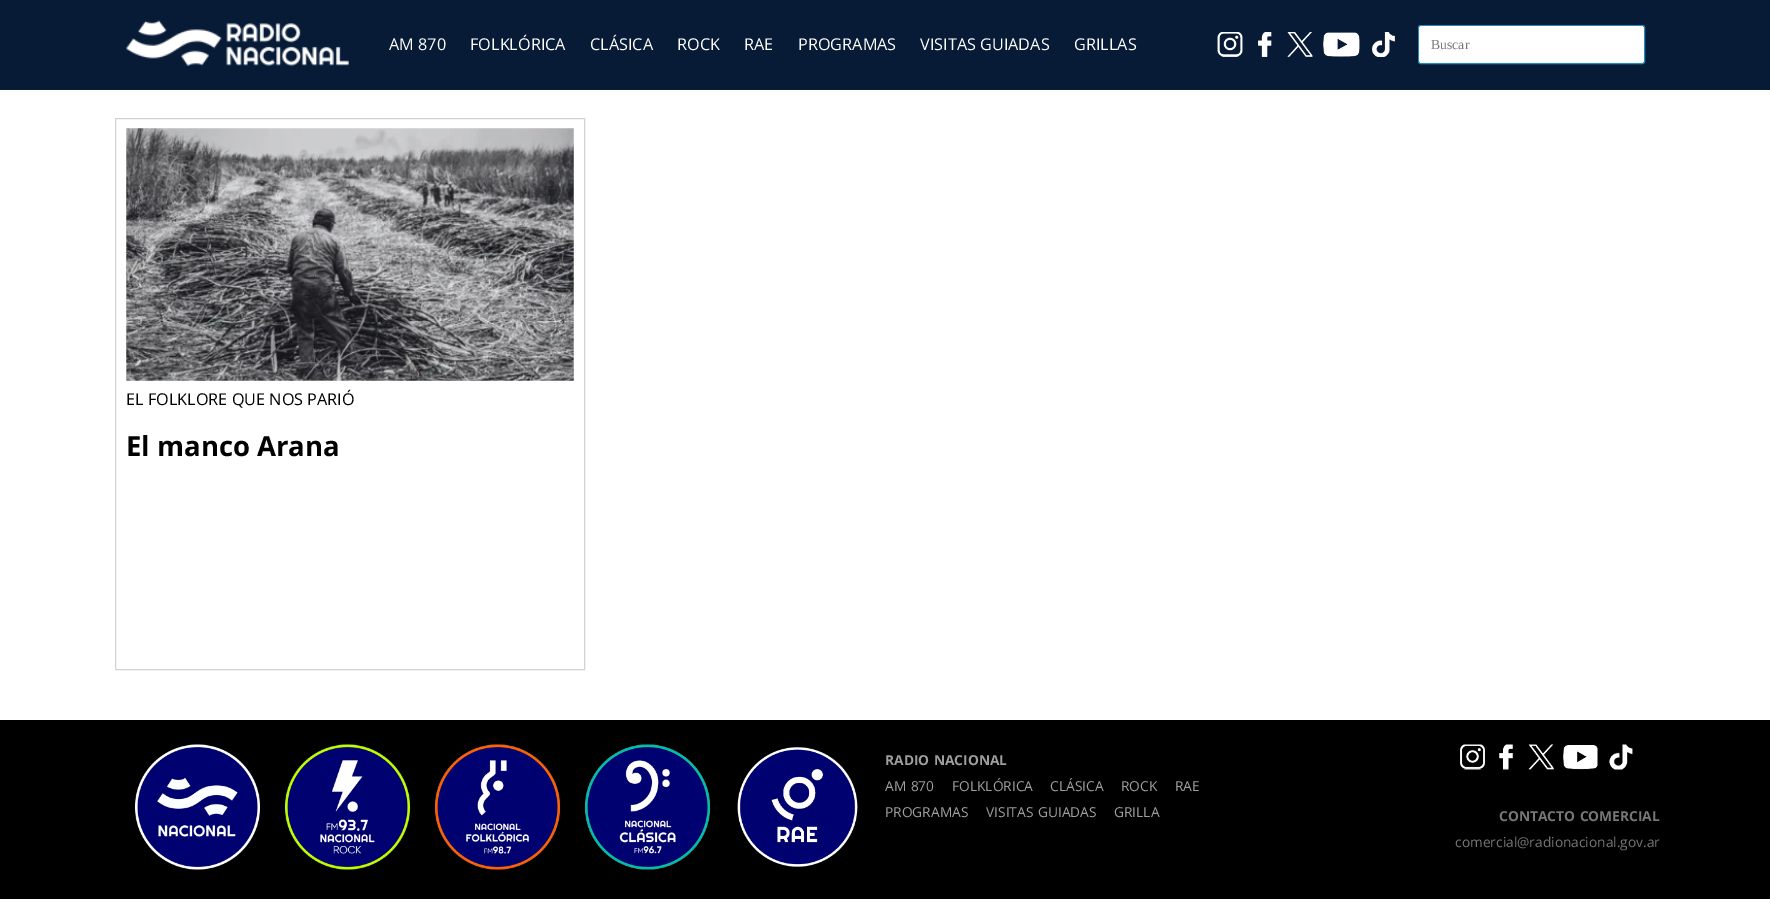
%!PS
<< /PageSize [1770 899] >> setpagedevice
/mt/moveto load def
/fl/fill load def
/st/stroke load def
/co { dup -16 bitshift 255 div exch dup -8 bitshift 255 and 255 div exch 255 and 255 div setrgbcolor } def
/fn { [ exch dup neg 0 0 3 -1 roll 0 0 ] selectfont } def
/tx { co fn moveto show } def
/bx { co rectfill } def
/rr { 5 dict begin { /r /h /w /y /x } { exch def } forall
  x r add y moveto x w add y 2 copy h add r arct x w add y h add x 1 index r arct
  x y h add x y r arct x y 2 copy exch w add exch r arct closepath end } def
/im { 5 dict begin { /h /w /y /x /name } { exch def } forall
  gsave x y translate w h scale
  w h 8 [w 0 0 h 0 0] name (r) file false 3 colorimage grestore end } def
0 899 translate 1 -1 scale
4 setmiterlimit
0 0 1770 899 16#FFFFFF bx
0 0 1770 90 16#071B36 bx
(media/1.raw) 126 20 223 46 im
(media/2.raw) 1217 32 26 25 im
(media/3.raw) 1258 32 14 25 im
(media/4.raw) 1287 32 26 25 im
(media/5.raw) 1323 32 37 25 im
(media/6.raw) 1372 32 23 25 im
16#1E8CBE co
1418.5 25.5 226 38 2 rr st
16#FFFFFF co
1419 26 225 37 2.5 rr fl
16#D3D3D3 co
115.5 118.5 469 551 rectstroke
(media/7.raw) 126 128 448 253 im
0 720 1770 179 16#000000 bx
(media/8.raw) 135 744 125 126 im
(media/9.raw) 285 744 125 126 im
(media/10.raw) 435 744 125 126 im
(media/11.raw) 585 744 125 126 im
(media/12.raw) 737 747 121 120 im
(media/13.raw) 1460 744 25 26 im
(media/14.raw) 1499 744 14 26 im
(media/15.raw) 1528 744 26 26 im
(media/16.raw) 1563 745 35 25 im
(media/17.raw) 1609 744 24 26 im
(AM 870) 389 50 /OpenSans-Regular 16.25 16#FFFFFF tx
(FOLKLÓRICA) 470 50 /OpenSans-Regular 16.25 16#FFFFFF tx
(CLÁSICA) 590 50 /OpenSans-Regular 16.25 16#FFFFFF tx
(ROCK) 677 50 /OpenSans-Regular 16.25 16#FFFFFF tx
(RAE) 744 50 /OpenSans-Regular 16.25 16#FFFFFF tx
(PROGRAMAS) 798 50 /OpenSans-Regular 16.25 16#FFFFFF tx
(VISITAS GUIADAS) 920 50 /OpenSans-Regular 16.25 16#FFFFFF tx
(GRILLAS) 1074 50 /OpenSans-Regular 16.25 16#FFFFFF tx
(Buscar) 1431 49 /LiberationSerif-Regular 13.75 16#787878 tx
(EL FOLKLORE QUE NOS PARIÓ) 126 405 /OpenSans-Regular 16.25 16#000000 tx
(El manco Arana) 126 456 /OpenSans-Bold 27.5 16#000000 tx
/OpenSans-Bold 13.75 fn
16#A09FA0 co
885 765 mt 1 0 32 (RADIO NACIONAL) widthshow
/OpenSans-Regular 13.75 fn
885 791 mt 1 0 32 (AM 870) widthshow
(FOLKLÓRICA) 952 791 /OpenSans-Regular 13.75 16#A09FA0 tx
(CLÁSICA) 1050 791 /OpenSans-Regular 13.75 16#A09FA0 tx
(ROCK) 1121 791 /OpenSans-Regular 13.75 16#A09FA0 tx
(RAE) 1175 791 /OpenSans-Regular 13.75 16#A09FA0 tx
(PROGRAMAS) 885 817 /OpenSans-Regular 13.75 16#A09FA0 tx
986 817 mt 1 0 32 (VISITAS GUIADAS) widthshow
(GRILLA) 1114 817 /OpenSans-Regular 13.75 16#A09FA0 tx
/OpenSans-Bold 13.75 fn
16#787878 co
1499 821 mt 1 0 32 (CONTACTO COMERCIAL) widthshow
(comercial@radionacional.gov.ar) 1455 847 /OpenSans-Regular 13.75 16#787878 tx
showpage
